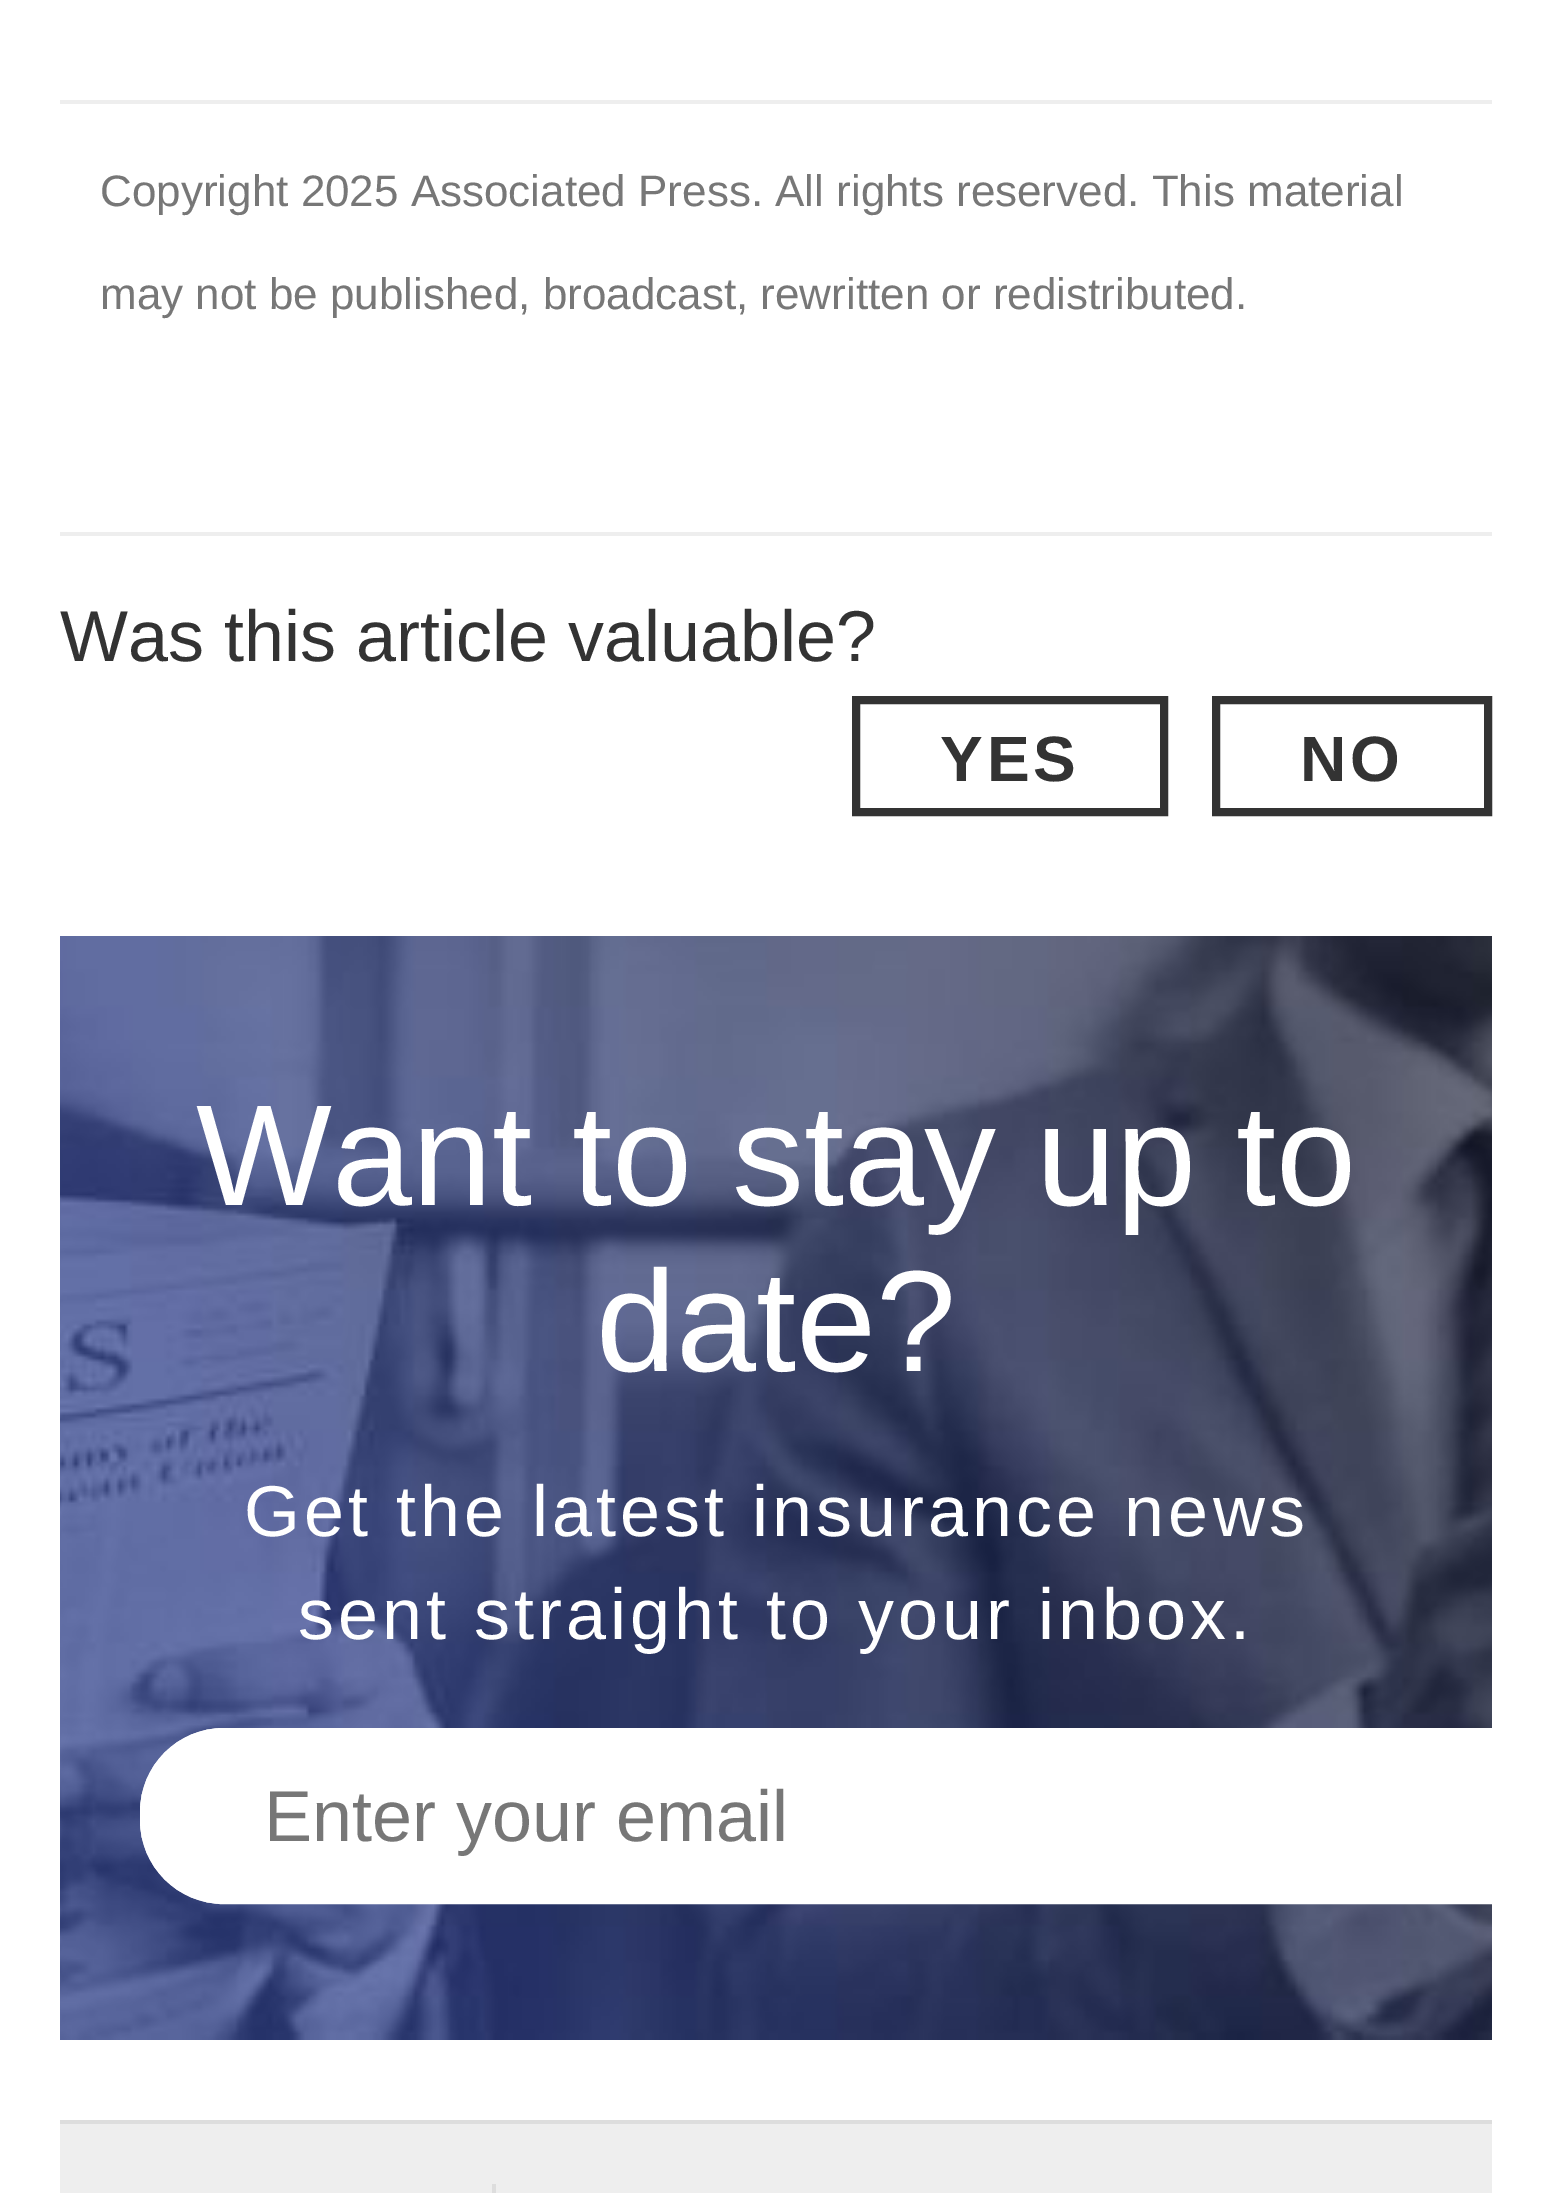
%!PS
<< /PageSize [1550 2193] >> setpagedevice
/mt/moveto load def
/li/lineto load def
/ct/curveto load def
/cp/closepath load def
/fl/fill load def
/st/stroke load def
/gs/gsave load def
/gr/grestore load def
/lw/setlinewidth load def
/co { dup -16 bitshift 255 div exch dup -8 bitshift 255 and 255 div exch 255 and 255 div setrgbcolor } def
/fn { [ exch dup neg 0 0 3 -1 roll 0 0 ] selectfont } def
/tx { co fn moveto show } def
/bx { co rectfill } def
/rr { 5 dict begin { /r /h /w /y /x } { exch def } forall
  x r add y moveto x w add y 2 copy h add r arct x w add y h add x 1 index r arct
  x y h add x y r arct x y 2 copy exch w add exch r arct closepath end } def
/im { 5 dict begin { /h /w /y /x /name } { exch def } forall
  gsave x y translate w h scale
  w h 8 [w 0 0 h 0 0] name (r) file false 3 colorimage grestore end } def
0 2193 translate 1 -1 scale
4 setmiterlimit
0 0 1550 2193 16#FFFFFF bx
60 100 1432 4 16#EEEEEE bx
60 532 1432 4 16#EEEEEE bx
16#333333 co
8 lw
856 700 308 112 rectstroke
1216 700 272 112 rectstroke
(media/1.raw) 60 936 1432 1104 im
16#FFFFFF co
224 1728 mt 1492 1728 li 1492 1904 li 224 1904 li 177.5 1904 140 1866.5 140 1820 ct 140 1812 li 140 1765.5 177.5 1728 224 1728 ct cp fl
gs
60 936 1432 1104 rectclip
4 lw
142 1730 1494 172 82 rr st
gr
60 2124 1432 69 16#EEEEEE bx
60 2120 1432 4 16#DDDDDD bx
492 2184 4 9 16#DDDDDD bx
(Copyright 2025 Associated Press. All rights reserved. This material) 100 206 /LiberationSans-Regular 44 16#777777 tx
(may not be published, broadcast, rewritten or redistributed.) 100 309 /LiberationSans-Regular 44 16#777777 tx
(Was this article valuable?) 60 661 /LiberationSans-Regular 72 16#333333 tx
/LiberationSans-Bold 64 fn
940 781 mt 4 0 (YES) ashow
1300 781 mt 4 0 (NO) ashow
(Want to stay up to) 196 1205 /LiberationSans-Regular 144 16#FFFFFF tx
(date?) 596 1371 /LiberationSans-Regular 144 16#FFFFFF tx
/LiberationSans-Regular 72 fn
244 1536 mt 4 0 (Get the latest insurance news) ashow
298 1639 mt 4 0 (sent straight to your inbox.) ashow
(Enter your email) 264 1841 /LiberationSans-Regular 72 16#777777 tx
showpage
